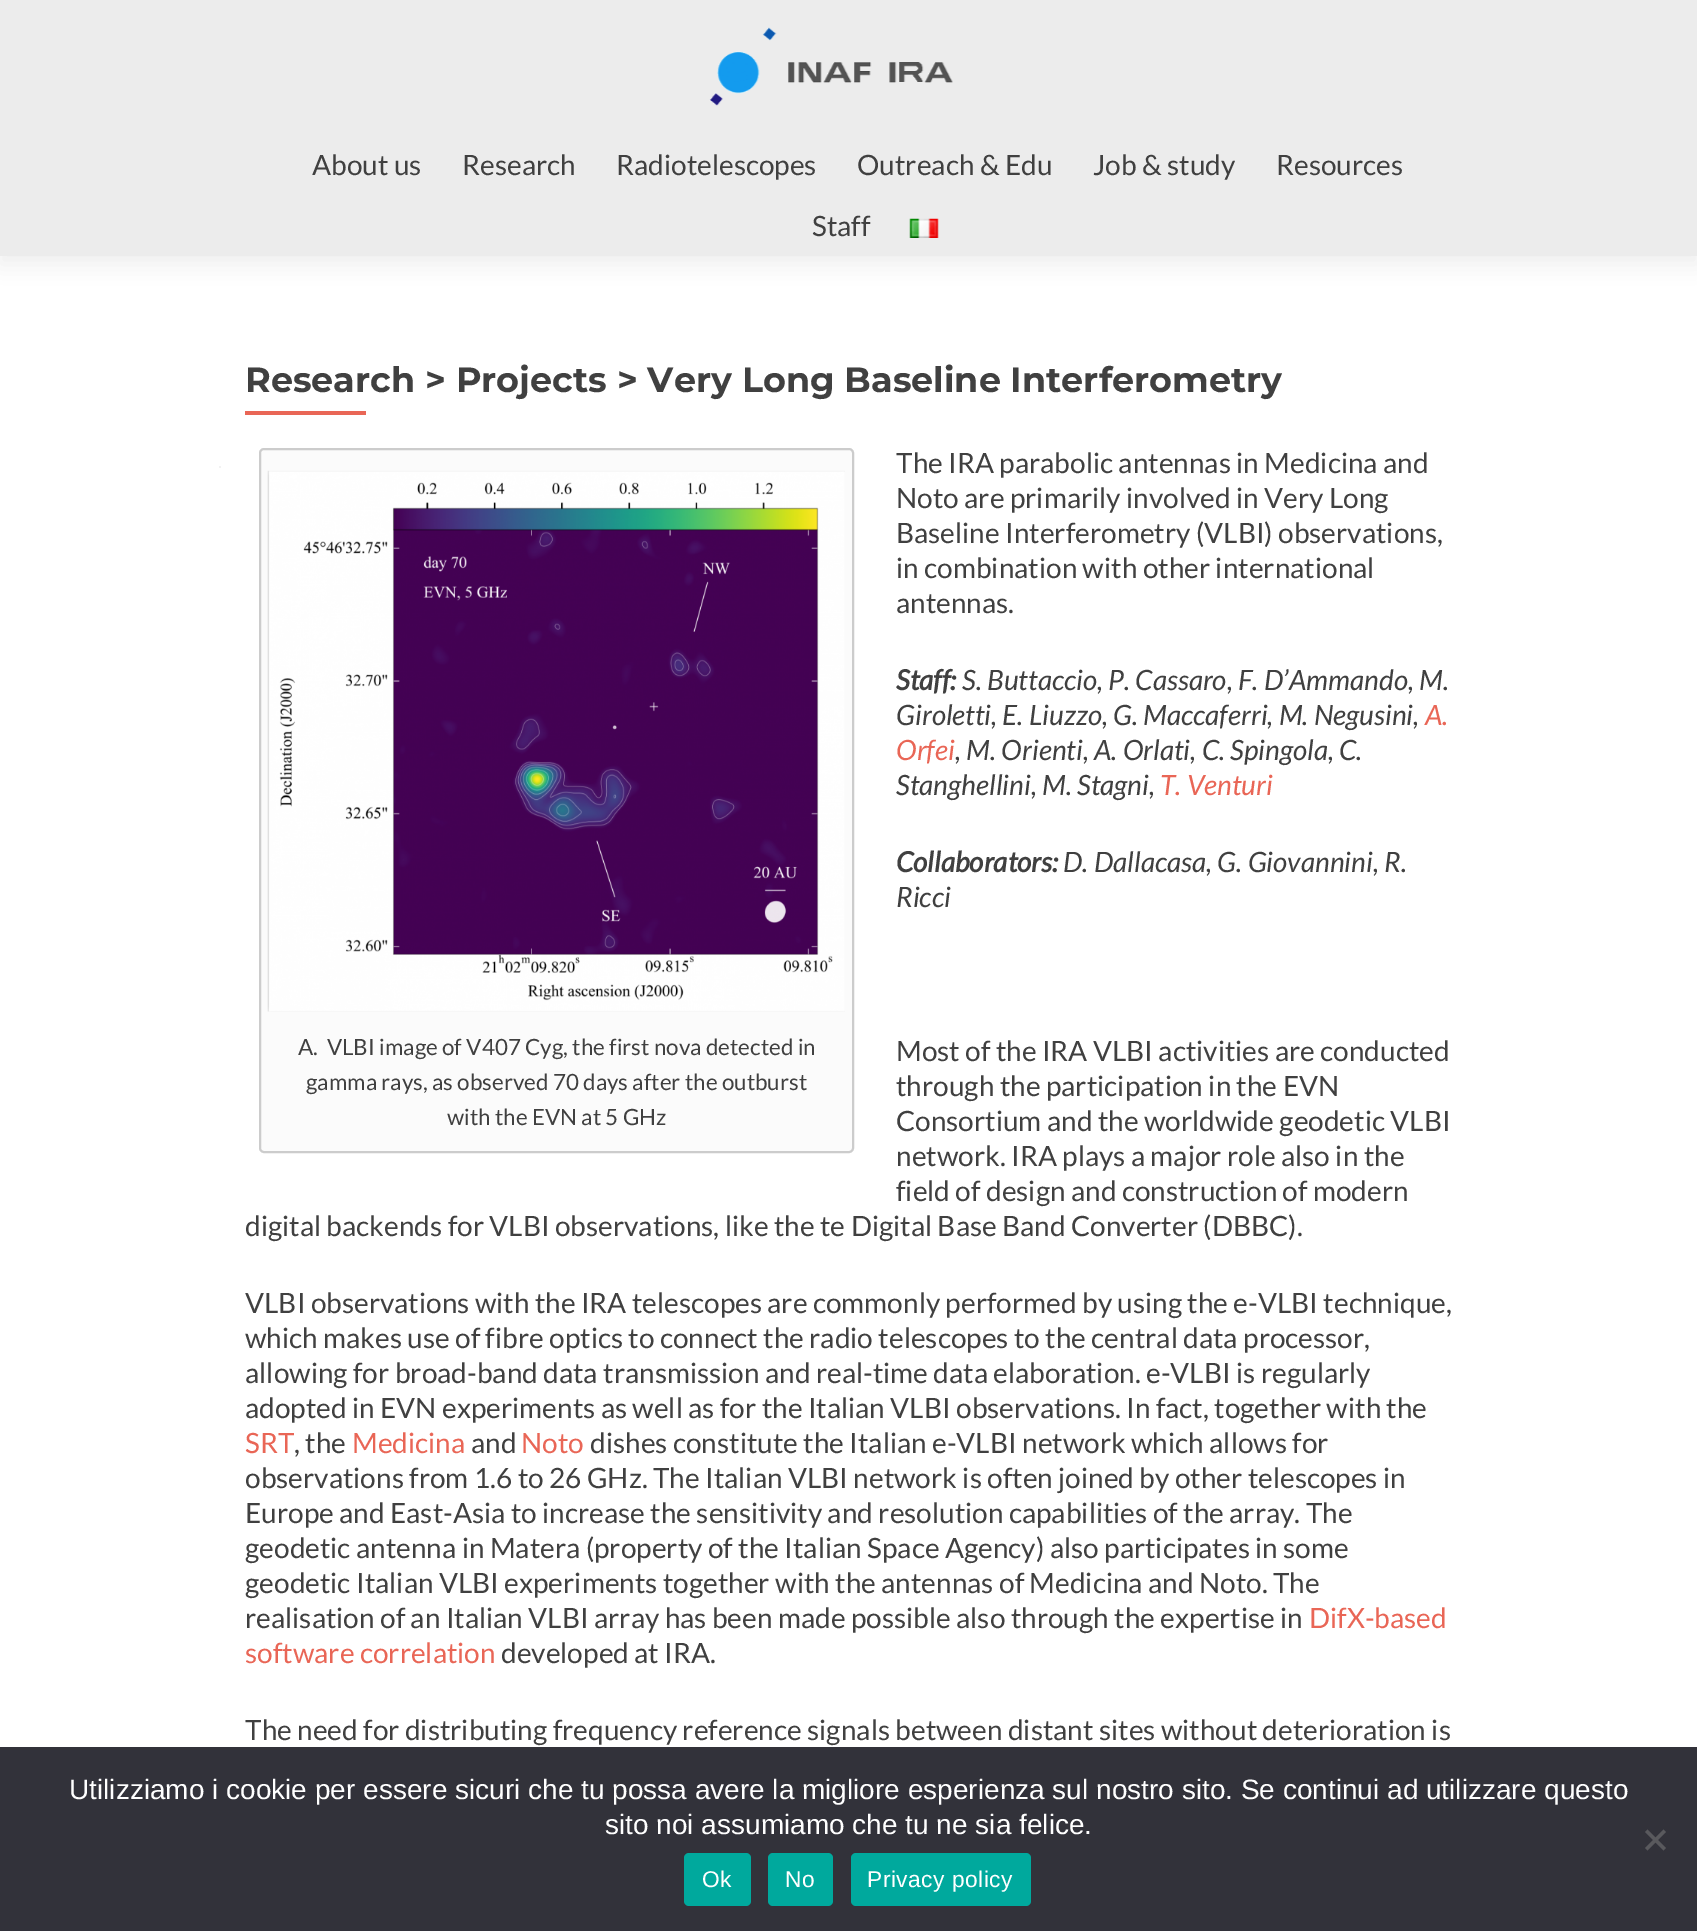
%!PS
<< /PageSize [1697 1931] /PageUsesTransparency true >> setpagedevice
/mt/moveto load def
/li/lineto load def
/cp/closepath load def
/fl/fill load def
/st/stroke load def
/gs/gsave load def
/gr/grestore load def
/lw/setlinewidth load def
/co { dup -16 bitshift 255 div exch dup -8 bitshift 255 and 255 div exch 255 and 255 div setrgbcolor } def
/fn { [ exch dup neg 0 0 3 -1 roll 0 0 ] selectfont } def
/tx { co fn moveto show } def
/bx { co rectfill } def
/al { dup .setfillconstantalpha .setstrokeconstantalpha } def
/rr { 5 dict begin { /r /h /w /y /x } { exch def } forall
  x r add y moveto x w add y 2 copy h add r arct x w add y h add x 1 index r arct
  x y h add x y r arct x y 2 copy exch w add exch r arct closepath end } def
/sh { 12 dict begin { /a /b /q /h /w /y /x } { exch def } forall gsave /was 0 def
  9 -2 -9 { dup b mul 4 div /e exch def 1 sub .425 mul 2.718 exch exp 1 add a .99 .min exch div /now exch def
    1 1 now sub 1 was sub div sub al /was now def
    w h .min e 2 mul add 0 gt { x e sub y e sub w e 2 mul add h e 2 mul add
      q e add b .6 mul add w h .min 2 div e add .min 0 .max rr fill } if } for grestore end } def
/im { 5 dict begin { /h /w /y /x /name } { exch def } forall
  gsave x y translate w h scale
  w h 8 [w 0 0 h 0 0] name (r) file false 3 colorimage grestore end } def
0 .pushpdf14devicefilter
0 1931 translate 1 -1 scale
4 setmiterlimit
0 0 1697 1931 16#FFFFFF bx
16#323232 co
0 9 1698 255 0 9.5 .08 sh
0 0 1697 256 16#ECECEC bx
(media/1.raw) 709 27 244 79 im
(media/2.raw) 909 218 30 20 im
219 466 2 2 16#F2F2F2 bx
245 411 121 4 16#E96656 bx
16#FBFBFB co
260 449 593 703 4 rr gs fl gr
16#CCCCCC co
2 lw
st
(media/3.raw) 267 470 578 542 im
0 1747 1697 184 16#32323A bx
16#59595D co
1663.5 1829.5 mt 1666 1832 li 1647.5 1850.5 li 1645 1848 li cp fl
1645 1832 mt 1647.5 1829.5 li 1666 1848 li 1663.5 1850.5 li cp fl
16#00A99D co
684 1853 67 53 5 rr fl
768 1853 65 53 5 rr fl
851 1853 180 53 5 rr fl
(About us) 312 175 /Lato-Regular 28 16#404040 tx
(Research) 462 175 /Lato-Regular 28 16#404040 tx
(Radiotelescopes) 616 175 /Lato-Regular 28 16#404040 tx
(Outreach & Edu) 857 175 /Lato-Regular 28 16#404040 tx
(Job & study) 1093 175 /Lato-Regular 28 16#404040 tx
(Resources) 1276 175 /Lato-Regular 28 16#404040 tx
(Staff) 812 236 /Lato-Regular 28 16#404040 tx
(Research > Projects > Very Long Baseline Interferometry) 245 392 /Montserrat-Thin 35 16#404040 tx
(The IRA parabolic antennas in Medicina and) 896 473 /Lato-Regular 28 16#404040 tx
(Noto are primarily involved in Very Long) 896 508 /Lato-Regular 28 16#404040 tx
(Baseline Interferometry \(VLBI\) observations,) 896 543 /Lato-Regular 28 16#404040 tx
(in combination with other international) 896 578 /Lato-Regular 28 16#404040 tx
(antennas.) 896 613 /Lato-Regular 28 16#404040 tx
(Staff:) 896 690 /Lato-BoldItalic 28 16#404040 tx
(S. Buttaccio, P. Cassaro, F. D’Ammando, M.) 962 690 /Lato-Italic 28 16#404040 tx
(Giroletti, E. Liuzzo, G. Maccaferri, M. Negusini,) 896 725 /Lato-Italic 28 16#404040 tx
(A.) 1425 725 /Lato-Italic 28 16#E96656 tx
(Orfei) 896 760 /Lato-Italic 28 16#E96656 tx
(, M. Orienti, A. Orlati, C. Spingola, C.) 955 760 /Lato-Italic 28 16#404040 tx
(Stanghellini, M. Stagni,) 896 795 /Lato-Italic 28 16#404040 tx
(T. Venturi) 1160 795 /Lato-Italic 28 16#E96656 tx
(Collaborators:) 896 872 /Lato-BoldItalic 28 16#404040 tx
(D. Dallacasa, G. Giovannini, R.) 1063 872 /Lato-Italic 28 16#404040 tx
(Ricci) 896 907 /Lato-Italic 28 16#404040 tx
(A.  VLBI image of V407 Cyg, the first nova detected in) 298 1055 /Lato-Regular 22.4 16#404040 tx
(gamma rays, as observed 70 days after the outburst) 306 1090 /Lato-Regular 22.4 16#404040 tx
(with the EVN at 5 GHz) 447 1125 /Lato-Regular 22.4 16#404040 tx
(Most of the IRA VLBI activities are conducted) 896 1061 /Lato-Regular 28 16#404040 tx
(through the participation in the EVN) 896 1096 /Lato-Regular 28 16#404040 tx
(Consortium and the worldwide geodetic VLBI) 896 1131 /Lato-Regular 28 16#404040 tx
(network. IRA plays a major role also in the) 896 1166 /Lato-Regular 28 16#404040 tx
(field of design and construction of modern) 896 1201 /Lato-Regular 28 16#404040 tx
(digital backends for VLBI observations, like the te Digital Base Band Converter \(DBBC\).) 245 1236 /Lato-Regular 28 16#404040 tx
(VLBI observations with the IRA telescopes are commonly performed by using the e-VLBI technique,) 245 1313 /Lato-Regular 28 16#404040 tx
(which makes use of fibre optics to connect the radio telescopes to the central data processor,) 245 1348 /Lato-Regular 28 16#404040 tx
(allowing for broad-band data transmission and real-time data elaboration. e-VLBI is regularly) 245 1383 /Lato-Regular 28 16#404040 tx
(adopted in EVN experiments as well as for the Italian VLBI observations. In fact, together with the) 245 1418 /Lato-Regular 28 16#404040 tx
(SRT) 245 1453 /Lato-Regular 28 16#E96656 tx
(, the) 294 1453 /Lato-Regular 28 16#404040 tx
(Medicina) 352 1453 /Lato-Regular 28 16#E96656 tx
(and) 471 1453 /Lato-Regular 28 16#404040 tx
(Noto) 521 1453 /Lato-Regular 28 16#E96656 tx
(dishes constitute the Italian e-VLBI network which allows for) 590 1453 /Lato-Regular 28 16#404040 tx
(observations from 1.6 to 26 GHz. The Italian VLBI network is often joined by other telescopes in) 245 1488 /Lato-Regular 28 16#404040 tx
(Europe and East-Asia to increase the sensitivity and resolution capabilities of the array. The) 245 1523 /Lato-Regular 28 16#404040 tx
(geodetic antenna in Matera \(property of the Italian Space Agency\) also participates in some) 245 1558 /Lato-Regular 28 16#404040 tx
(geodetic Italian VLBI experiments together with the antennas of Medicina and Noto. The) 245 1593 /Lato-Regular 28 16#404040 tx
(realisation of an Italian VLBI array has been made possible also through the expertise in) 245 1628 /Lato-Regular 28 16#404040 tx
(DifX-based) 1309 1628 /Lato-Regular 28 16#E96656 tx
(software correlation) 245 1663 /Lato-Regular 28 16#E96656 tx
(developed at IRA.) 501 1663 /Lato-Regular 28 16#404040 tx
(The need for distributing frequency reference signals between distant sites without deterioration is) 245 1740 /Lato-Regular 28 16#404040 tx
(Utilizziamo i cookie per essere sicuri che tu possa avere la migliore esperienza sul nostro sito. Se continui ad utilizzare questo) 69 1799 /LiberationSans-Regular 28 16#FFFFFF tx
(sito noi assumiamo che tu ne sia felice.) 605 1834 /LiberationSans-Regular 28 16#FFFFFF tx
/LiberationSans-Regular 22.75 fn
702 1887 mt .5 0 (Ok) ashow
785 1887 mt .5 0 (No) ashow
867 1887 mt .5 0 (Privacy policy) ashow
.poppdf14devicefilter showpage
